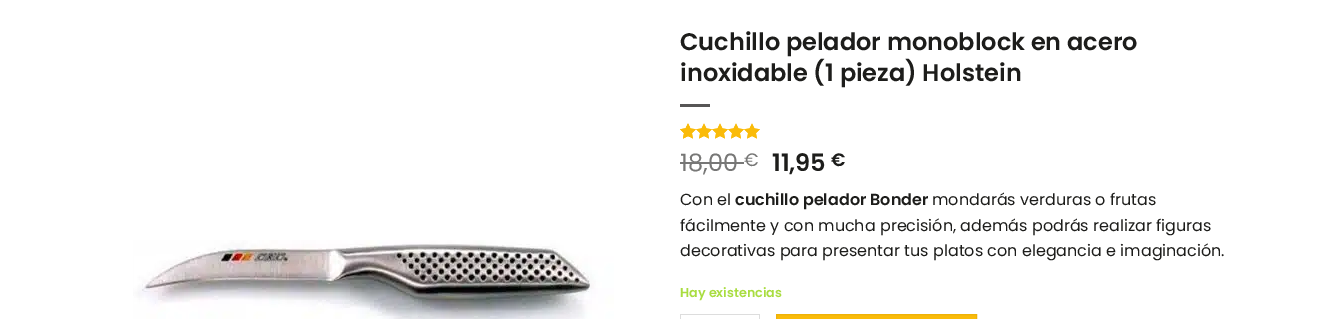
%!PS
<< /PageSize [1330 319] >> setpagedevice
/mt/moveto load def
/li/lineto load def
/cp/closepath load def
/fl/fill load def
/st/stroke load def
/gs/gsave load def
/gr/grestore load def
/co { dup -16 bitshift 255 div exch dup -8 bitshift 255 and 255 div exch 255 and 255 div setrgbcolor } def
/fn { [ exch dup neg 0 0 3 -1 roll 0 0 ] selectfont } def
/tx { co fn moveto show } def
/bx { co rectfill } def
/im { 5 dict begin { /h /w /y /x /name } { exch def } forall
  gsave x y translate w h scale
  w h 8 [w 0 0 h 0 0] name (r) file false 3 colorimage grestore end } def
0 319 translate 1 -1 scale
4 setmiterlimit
0 0 1330 319 16#FFFFFF bx
(media/1.raw) 133 240 481 79 im
680 104 30 3 16#575656 bx
(media/2.raw) 680 123 80 16 im
(media/3.raw) 680 123 80 16 im
(media/4.raw) 680 123 10 16 im
680 162 64 2 16#777776 bx
680 314 80 1 16#DDDDDD bx
680 314 1 5 16#DDDDDD bx
759 314 1 5 16#DDDDDD bx
16#FABB09 co
776.5 314.5 mt 976.5 314.5 li 976.5 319.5 li 776.5 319.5 li cp gs fl gr
16#EEB209 co
st
(Cuchillo pelador monoblock en acero) 680 50 /Poppins-SemiBold 24 16#1D1D1B tx
(inoxidable \(1 pieza\) Holstein) 680 81 /Poppins-SemiBold 24 16#1D1D1B tx
(18,00) 680 171 /Poppins-Regular 24 16#777776 tx
(€) 744 166 /Poppins-Regular 18 16#777776 tx
(11,95) 772 171 /Poppins-SemiBold 24 16#1D1D1B tx
(€) 831 166 /Poppins-SemiBold 18 16#1D1D1B tx
(Con el) 680 205 /Poppins-Regular 16 16#1D1D1B tx
(cuchillo pelador Bonder) 735 205 /Poppins-SemiBold 16 16#1D1D1B tx
(mondarás verduras o frutas) 932 205 /Poppins-Regular 16 16#1D1D1B tx
(fácilmente y con mucha precisión, además podrás realizar figuras) 680 231 /Poppins-Regular 16 16#1D1D1B tx
(decorativas para presentar tus platos con elegancia e imaginación.) 680 256 /Poppins-Regular 16 16#1D1D1B tx
(Hay existencias) 680 297 /Poppins-SemiBold 12.75 16#A9DD40 tx
showpage
